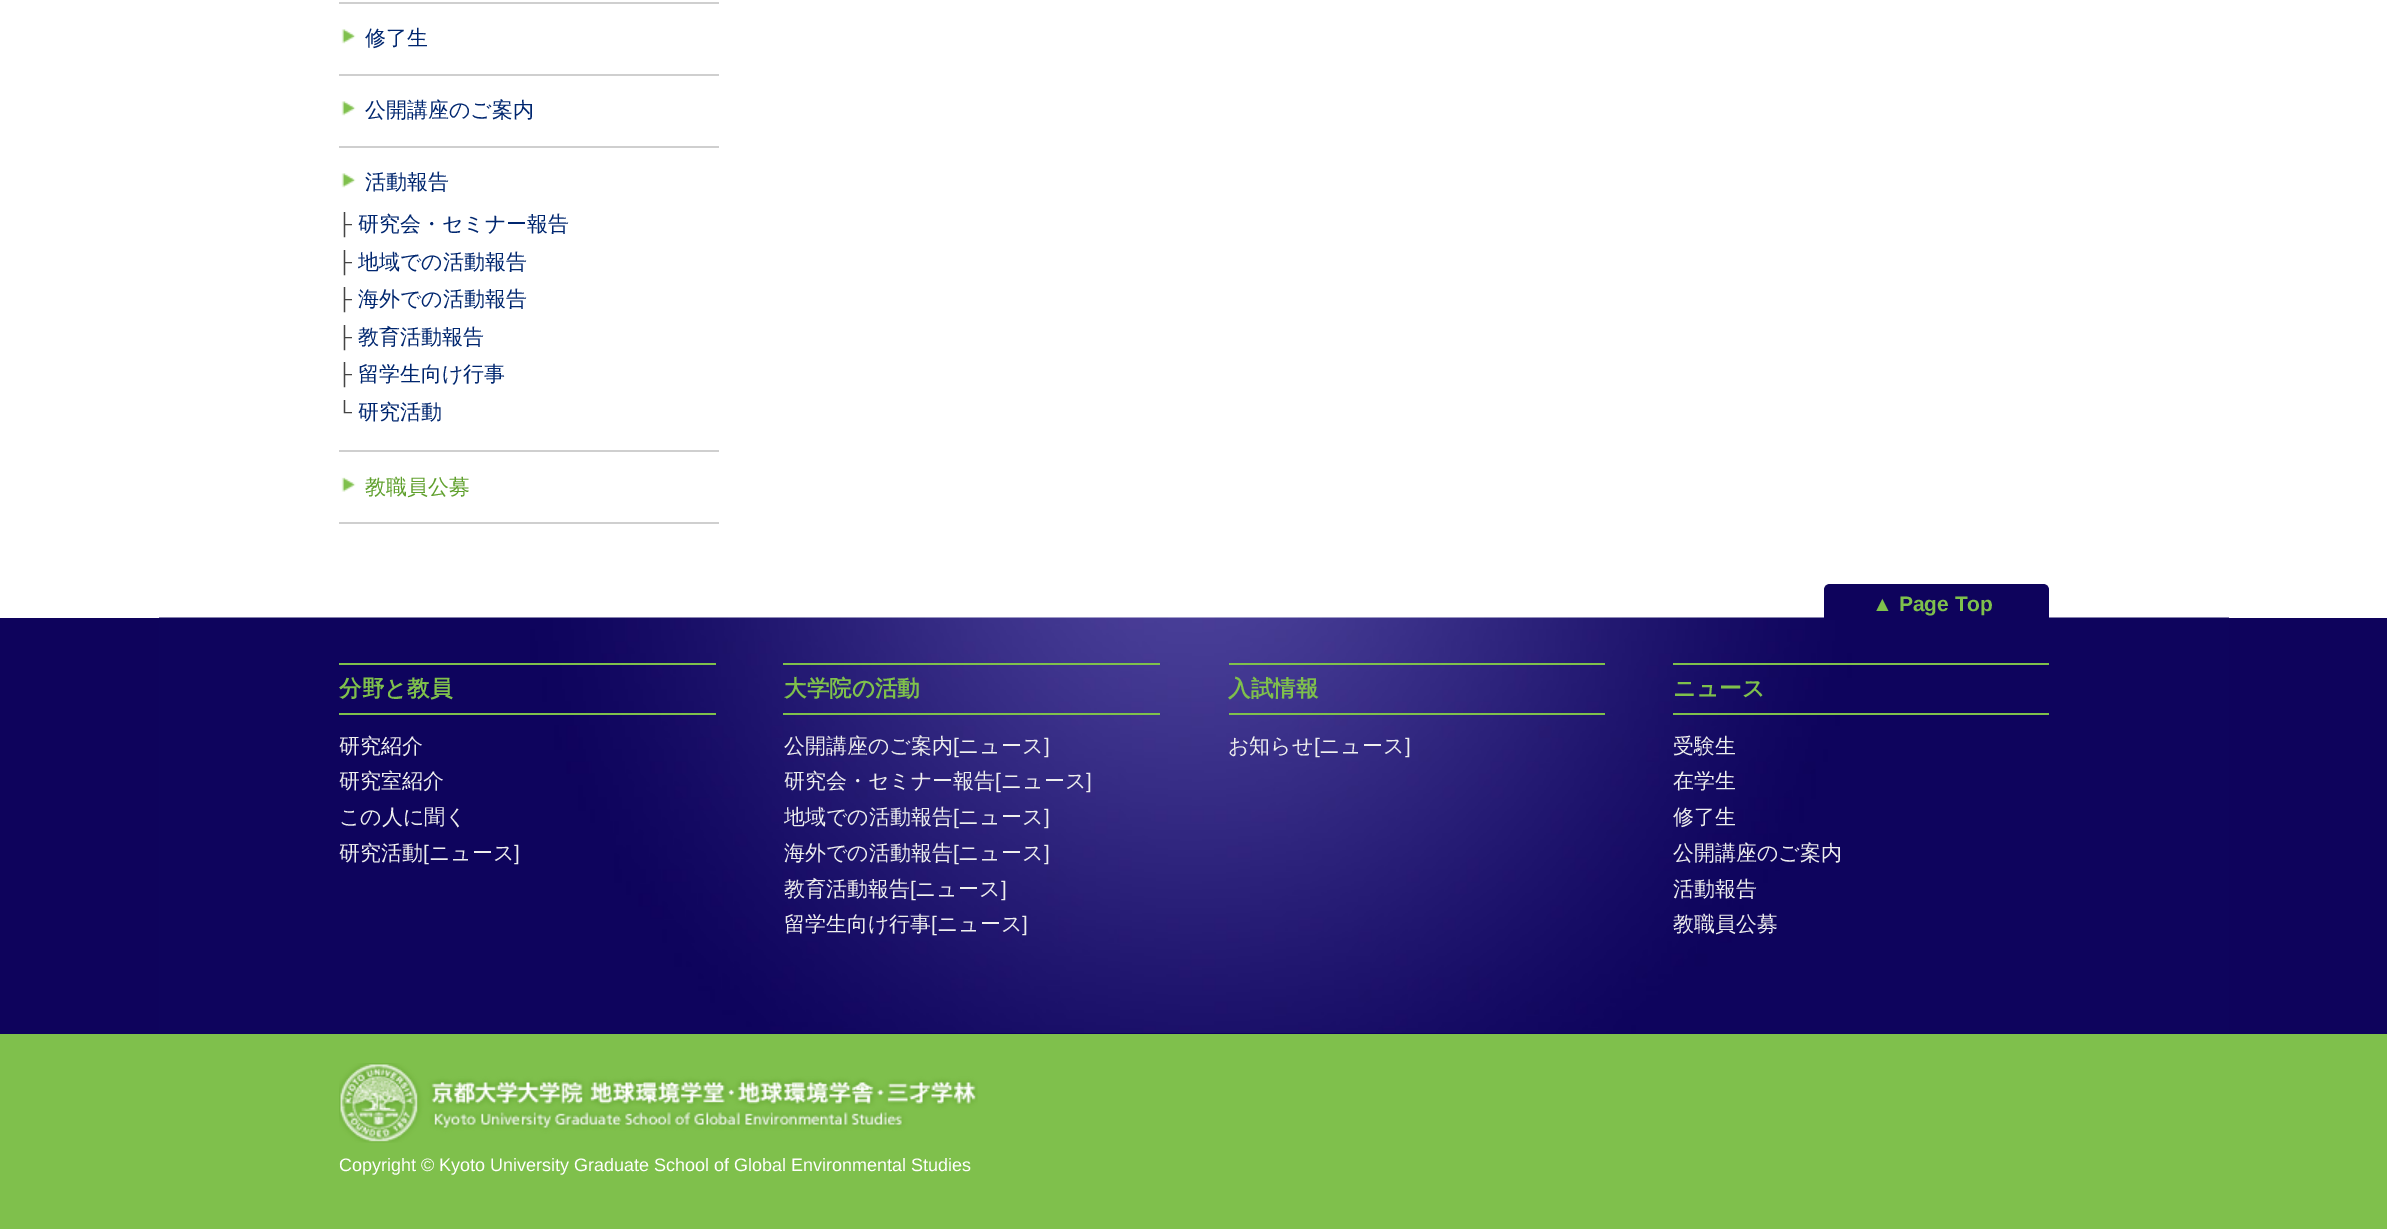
%!PS
<< /PageSize [2387 1229] >> setpagedevice
/mt/moveto load def
/li/lineto load def
/ct/curveto load def
/cp/closepath load def
/fl/fill load def
/co { dup -16 bitshift 255 div exch dup -8 bitshift 255 and 255 div exch 255 and 255 div setrgbcolor } def
/fn { [ exch dup neg 0 0 3 -1 roll 0 0 ] selectfont } def
/tx { co fn moveto show } def
/bx { co rectfill } def
/im { 5 dict begin { /h /w /y /x /name } { exch def } forall
  gsave x y translate w h scale
  w h 8 [w 0 0 h 0 0] name (r) file false 3 colorimage grestore end } def
0 1229 translate 1 -1 scale
4 setmiterlimit
0 0 2387 1229 16#FFFFFF bx
339 2 380 2 16#CFCFCF bx
(media/1.raw) 341 29 15 15 im
339 74 380 2 16#CFCFCF bx
(media/1.raw) 341 101 15 15 im
339 146 380 2 16#CFCFCF bx
(media/1.raw) 341 173 15 15 im
339 450 380 2 16#CFCFCF bx
(media/2.raw) 341 477 15 15 im
339 522 380 2 16#CFCFCF bx
0 618 2387 416 16#0E035C bx
(media/3.raw) 159 617 2070 416 im
1830 584 mt 2043 584 li 2046.5 584 2049 586.5 2049 590 ct 2049 620 li 1824 620 li 1824 590 li 1824 586.5 1826.5 584 1830 584 ct cp fl
339 663 377 2 16#7FC04C bx
339 713 377 2 16#7FC04C bx
783 663 377 2 16#7FC04C bx
783 713 377 2 16#7FC04C bx
1229 663 376 2 16#7FC04C bx
1229 713 376 2 16#7FC04C bx
1673 663 376 2 16#7FC04C bx
1673 713 376 2 16#7FC04C bx
0 1034 2387 195 16#7FC04C bx
(media/4.raw) 339 1063 639 80 im
(修了生) 365 45 /WenQuanYiZenHei-Medium 21 16#00266F tx
(公開講座のご案内) 365 117 /WenQuanYiZenHei-Medium 21 16#00266F tx
(活動報告) 365 189 /WenQuanYiZenHei-Medium 21 16#00266F tx
(├) 337 231 /LiberationSans-Regular 21 16#444444 tx
(研究会・セミナー報告) 358 231 /WenQuanYiZenHei-Medium 21 16#00266F tx
(├) 337 269 /LiberationSans-Regular 21 16#444444 tx
(地域での活動報告) 358 269 /WenQuanYiZenHei-Medium 21 16#00266F tx
(├) 337 306 /LiberationSans-Regular 21 16#444444 tx
(海外での活動報告) 358 306 /WenQuanYiZenHei-Medium 21 16#00266F tx
(├) 337 344 /LiberationSans-Regular 21 16#444444 tx
(教育活動報告) 358 344 /WenQuanYiZenHei-Medium 21 16#00266F tx
(├) 337 381 /LiberationSans-Regular 21 16#444444 tx
(留学生向け行事) 358 381 /WenQuanYiZenHei-Medium 21 16#00266F tx
(└) 337 419 /LiberationSans-Regular 21 16#444444 tx
(研究活動) 358 419 /WenQuanYiZenHei-Medium 21 16#00266F tx
(教職員公募) 365 494 /WenQuanYiZenHei-Medium 21 16#5FA02C tx
(▲ Page Top) 1872 611 /LiberationSans-Bold 21 16#7FC04C tx
(分野と教員) 339 696 /WenQuanYiZenHei-Bold 22.5 16#7FC04C tx
(研究紹介) 339 753 /WenQuanYiZenHei-Medium 21 16#EEEEEE tx
(研究室紹介) 339 788 /WenQuanYiZenHei-Medium 21 16#EEEEEE tx
(この人に聞く) 339 824 /WenQuanYiZenHei-Medium 21 16#EEEEEE tx
(研究活動) 339 860 /WenQuanYiZenHei-Medium 21 16#EEEEEE tx
([) 423 860 /LiberationSans-Regular 21 16#EEEEEE tx
(ニュース) 429 860 /WenQuanYiZenHei-Medium 21 16#EEEEEE tx
(]) 514 860 /LiberationSans-Regular 21 16#EEEEEE tx
(大学院の活動) 784 696 /WenQuanYiZenHei-Bold 22.5 16#7FC04C tx
(公開講座のご案内) 784 753 /WenQuanYiZenHei-Medium 21 16#EEEEEE tx
([) 953 753 /LiberationSans-Regular 21 16#EEEEEE tx
(ニュース) 958 753 /WenQuanYiZenHei-Medium 21 16#EEEEEE tx
(]) 1044 753 /LiberationSans-Regular 21 16#EEEEEE tx
(研究会・セミナー報告) 784 788 /WenQuanYiZenHei-Medium 21 16#EEEEEE tx
([) 995 788 /LiberationSans-Regular 21 16#EEEEEE tx
(ニュース) 1001 788 /WenQuanYiZenHei-Medium 21 16#EEEEEE tx
(]) 1086 788 /LiberationSans-Regular 21 16#EEEEEE tx
(地域での活動報告) 784 824 /WenQuanYiZenHei-Medium 21 16#EEEEEE tx
([) 953 824 /LiberationSans-Regular 21 16#EEEEEE tx
(ニュース) 958 824 /WenQuanYiZenHei-Medium 21 16#EEEEEE tx
(]) 1044 824 /LiberationSans-Regular 21 16#EEEEEE tx
(海外での活動報告) 784 860 /WenQuanYiZenHei-Medium 21 16#EEEEEE tx
([) 953 860 /LiberationSans-Regular 21 16#EEEEEE tx
(ニュース) 958 860 /WenQuanYiZenHei-Medium 21 16#EEEEEE tx
(]) 1044 860 /LiberationSans-Regular 21 16#EEEEEE tx
(教育活動報告) 784 896 /WenQuanYiZenHei-Medium 21 16#EEEEEE tx
([) 910 896 /LiberationSans-Regular 21 16#EEEEEE tx
(ニュース) 915 896 /WenQuanYiZenHei-Medium 21 16#EEEEEE tx
(]) 1001 896 /LiberationSans-Regular 21 16#EEEEEE tx
(留学生向け行事) 784 931 /WenQuanYiZenHei-Medium 21 16#EEEEEE tx
([) 931 931 /LiberationSans-Regular 21 16#EEEEEE tx
(ニュース) 937 931 /WenQuanYiZenHei-Medium 21 16#EEEEEE tx
(]) 1022 931 /LiberationSans-Regular 21 16#EEEEEE tx
(入試情報) 1228 696 /WenQuanYiZenHei-Bold 22.5 16#7FC04C tx
(お知らせ) 1228 753 /WenQuanYiZenHei-Medium 21 16#EEEEEE tx
([) 1314 753 /LiberationSans-Regular 21 16#EEEEEE tx
(ニュース) 1319 753 /WenQuanYiZenHei-Medium 21 16#EEEEEE tx
(]) 1405 753 /LiberationSans-Regular 21 16#EEEEEE tx
(ニュース) 1673 696 /WenQuanYiZenHei-Bold 22.5 16#7FC04C tx
(受験生) 1673 753 /WenQuanYiZenHei-Medium 21 16#EEEEEE tx
(在学生) 1673 788 /WenQuanYiZenHei-Medium 21 16#EEEEEE tx
(修了生) 1673 824 /WenQuanYiZenHei-Medium 21 16#EEEEEE tx
(公開講座のご案内) 1673 860 /WenQuanYiZenHei-Medium 21 16#EEEEEE tx
(活動報告) 1673 896 /WenQuanYiZenHei-Medium 21 16#EEEEEE tx
(教職員公募) 1673 931 /WenQuanYiZenHei-Medium 21 16#EEEEEE tx
(Copyright © Kyoto University Graduate School of Global Environmental Studies) 339 1171 /LiberationSans-Regular 18 16#FFFFFF tx
showpage
